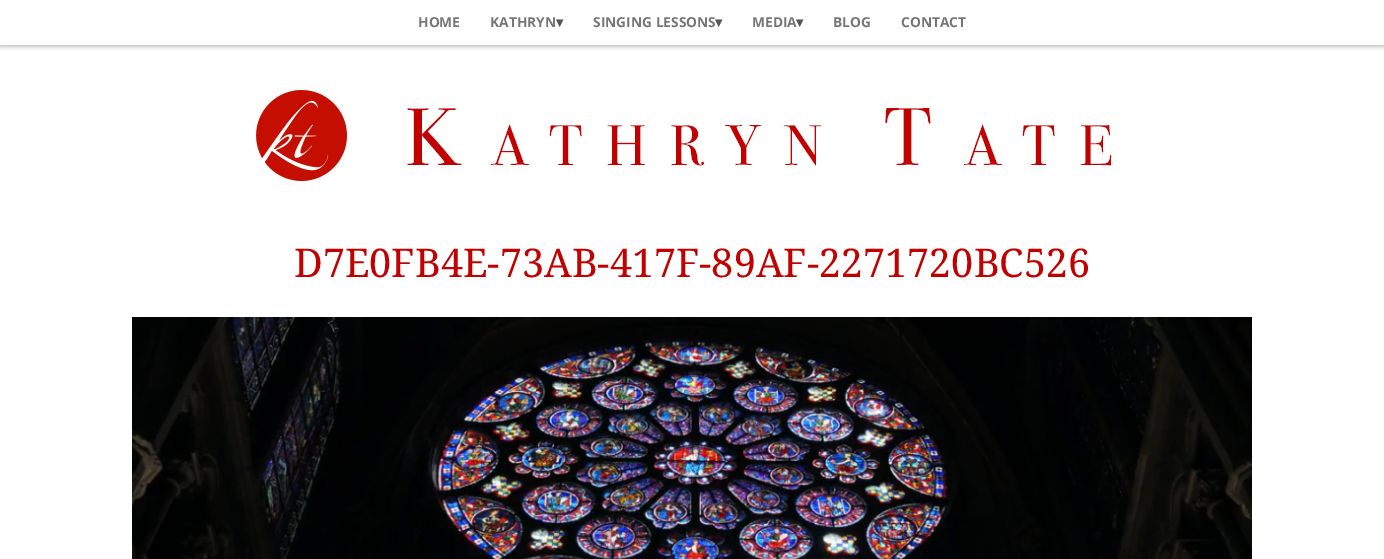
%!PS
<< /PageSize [1384 559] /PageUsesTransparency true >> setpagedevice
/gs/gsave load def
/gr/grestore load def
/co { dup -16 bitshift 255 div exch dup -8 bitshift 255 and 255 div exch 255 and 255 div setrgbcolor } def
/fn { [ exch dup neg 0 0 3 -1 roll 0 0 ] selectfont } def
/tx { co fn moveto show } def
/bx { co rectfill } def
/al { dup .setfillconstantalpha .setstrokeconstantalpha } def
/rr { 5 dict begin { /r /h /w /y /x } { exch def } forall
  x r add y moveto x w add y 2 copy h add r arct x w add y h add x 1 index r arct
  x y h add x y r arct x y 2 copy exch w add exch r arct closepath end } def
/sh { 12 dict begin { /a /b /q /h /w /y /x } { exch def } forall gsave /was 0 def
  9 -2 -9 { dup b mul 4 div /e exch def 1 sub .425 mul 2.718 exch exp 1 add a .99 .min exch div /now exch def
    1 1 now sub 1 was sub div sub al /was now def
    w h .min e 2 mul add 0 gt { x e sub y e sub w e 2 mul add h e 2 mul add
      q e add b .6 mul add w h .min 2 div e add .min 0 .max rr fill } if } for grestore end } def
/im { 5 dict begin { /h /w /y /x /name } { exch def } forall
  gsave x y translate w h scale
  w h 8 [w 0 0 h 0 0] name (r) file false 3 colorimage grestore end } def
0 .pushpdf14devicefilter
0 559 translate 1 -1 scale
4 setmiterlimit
0 0 1384 559 16#FFFFFF bx
gs
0 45 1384 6 rectclip
16#AAAAAA co
0 1 1384 45 0 2.5 1 sh
gr
(media/1.raw) 251 85 863 101 im
(media/2.raw) 132 317 1120 242 im
(HOME) 418 27 /OpenSans-Bold 13.75 16#757575 tx
(KATHRYN) 490 27 /OpenSans-Bold 13.75 16#757575 tx
(▾) 556 27 /DejaVuSans-Bold 13.75 16#555555 tx
(SINGING LESSONS) 593 27 /OpenSans-Bold 13.75 16#757575 tx
(▾) 715 27 /DejaVuSans-Bold 13.75 16#555555 tx
(MEDIA) 752 27 /OpenSans-Bold 13.75 16#757575 tx
(▾) 796 27 /DejaVuSans-Bold 13.75 16#555555 tx
(BLOG) 833 27 /OpenSans-Bold 13.75 16#757575 tx
(CONTACT) 901 27 /OpenSans-Bold 13.75 16#757575 tx
(D7E0FB4E-73AB-417F-89AF-2271720BC526) 294 277 /DroidSerif-Regular 39.5 16#C20000 tx
.poppdf14devicefilter showpage
